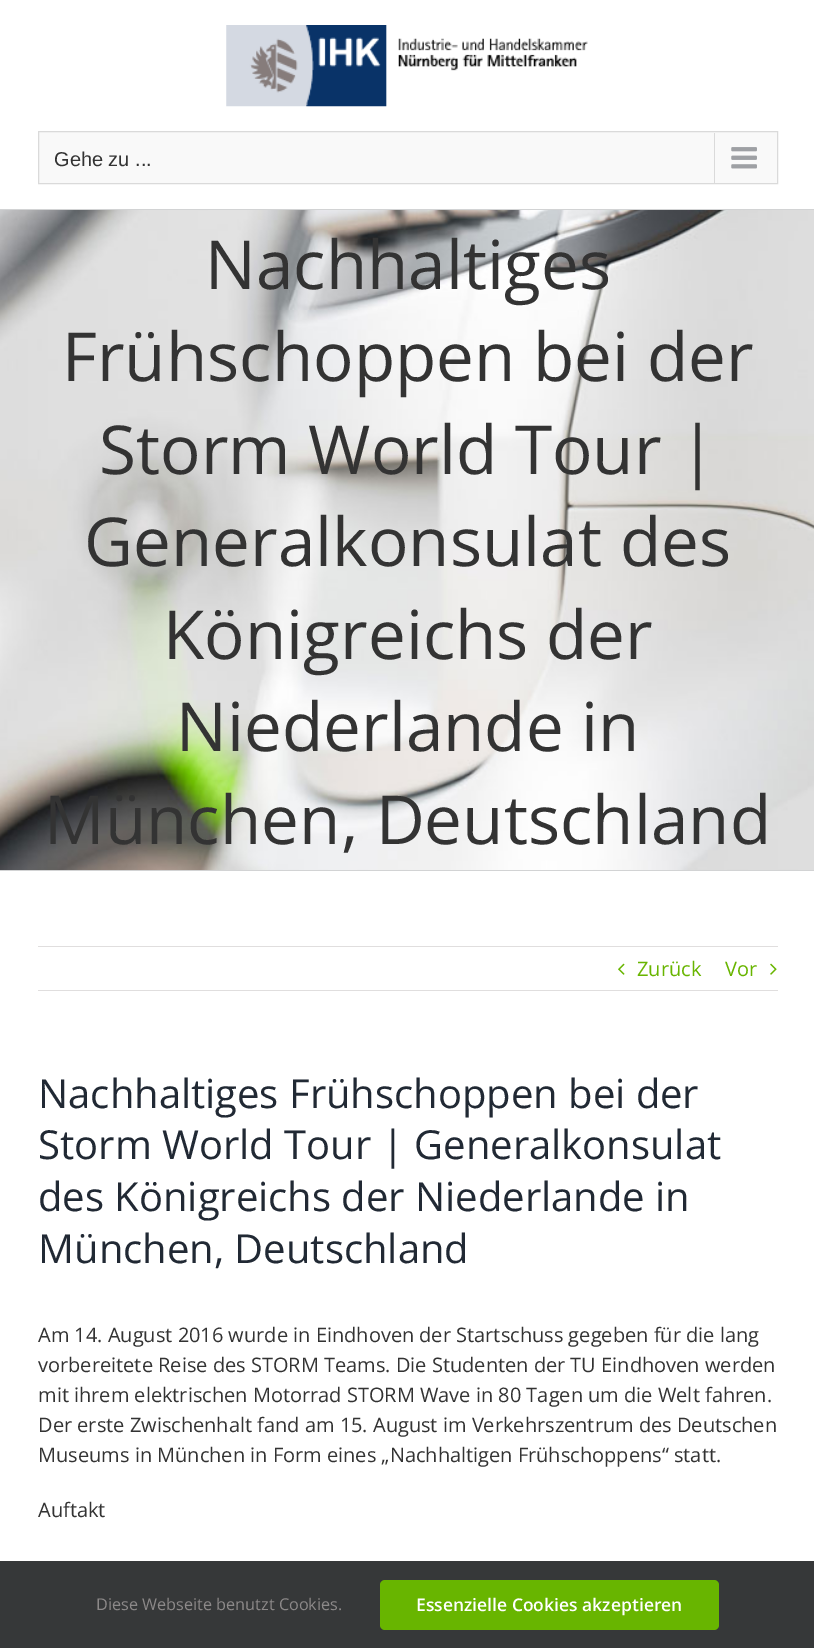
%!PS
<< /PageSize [814 1648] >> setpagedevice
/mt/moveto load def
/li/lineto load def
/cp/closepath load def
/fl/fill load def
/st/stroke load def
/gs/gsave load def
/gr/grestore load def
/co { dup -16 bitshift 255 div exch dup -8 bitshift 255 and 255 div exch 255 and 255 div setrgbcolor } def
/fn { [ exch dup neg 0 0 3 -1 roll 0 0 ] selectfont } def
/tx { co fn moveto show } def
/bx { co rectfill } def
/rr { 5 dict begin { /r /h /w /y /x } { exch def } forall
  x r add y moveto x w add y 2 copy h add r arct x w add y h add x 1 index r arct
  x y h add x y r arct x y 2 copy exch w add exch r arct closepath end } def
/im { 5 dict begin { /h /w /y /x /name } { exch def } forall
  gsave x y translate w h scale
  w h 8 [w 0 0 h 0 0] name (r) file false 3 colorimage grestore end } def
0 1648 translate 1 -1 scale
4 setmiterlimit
0 0 814 1648 16#FFFFFF bx
(media/1.raw) 226 25 362 82 im
16#F9F9F9 co
38.5 131.5 mt 777.5 131.5 li 777.5 183.5 li 38.5 183.5 li cp gs fl gr
16#DADADA co
st
714 133 1 50 16#DADADA bx
(media/2.raw) 731 147 26 22 im
(media/3.raw) 0 210 814 660 im
0 209 814 1 16#D2D3D4 bx
0 870 814 1 16#D2D3D4 bx
38 946 740 1 16#E0DEDE bx
38 990 740 1 16#E0DEDE bx
(media/4.raw) 618 963 7 12 im
(media/5.raw) 770 963 7 12 im
0 1561 814 87 16#363839 bx
16#68B500 co
380 1580 339 50 5 rr fl
(Gehe zu ...) 54 166 /LiberationSans-Regular 20 16#333333 tx
(Nachhaltiges) 205 289 /OpenSans-Regular 67.5 16#333333 tx
(Frühschoppen bei der) 62 381 /OpenSans-Regular 67.5 16#333333 tx
(Storm World Tour |) 99 474 /OpenSans-Regular 67.5 16#333333 tx
(Generalkonsulat des) 84 566 /OpenSans-Regular 67.5 16#333333 tx
(Königreichs der) 163 659 /OpenSans-Regular 67.5 16#333333 tx
(Niederlande in) 176 751 /OpenSans-Regular 67.5 16#333333 tx
(München, Deutschland) 44 844 /OpenSans-Regular 67.5 16#333333 tx
(Zurück) 637 976 /OpenSans-Regular 20 16#68B500 tx
(Vor) 725 976 /OpenSans-Regular 20 16#68B500 tx
(Nachhaltiges Frühschoppen bei der) 38 1108 /OpenSans-Regular 40 16#212934 tx
(Storm World Tour | Generalkonsulat) 38 1159 /OpenSans-Regular 40 16#212934 tx
(des Königreichs der Niederlande in) 38 1211 /OpenSans-Regular 40 16#212934 tx
(München, Deutschland) 38 1263 /OpenSans-Regular 40 16#212934 tx
(Am 14. August 2016 wurde in Eindhoven der Startschuss gegeben für die lang) 38 1342 /OpenSans-Regular 20 16#333333 tx
(vorbereitete Reise des STORM Teams. Die Studenten der TU Eindhoven werden) 38 1372 /OpenSans-Regular 20 16#333333 tx
(mit ihrem elektrischen Motorrad STORM Wave in 80 Tagen um die Welt fahren.) 38 1402 /OpenSans-Regular 20 16#333333 tx
(Der erste Zwischenhalt fand am 15. August im Verkehrszentrum des Deutschen) 38 1432 /OpenSans-Regular 20 16#333333 tx
(Museums in München in Form eines „Nachhaltigen Frühschoppens“ statt.) 38 1462 /OpenSans-Regular 20 16#333333 tx
(Auftakt) 38 1517 /OpenSans-Regular 20 16#333333 tx
(Diese Webseite benutzt Cookies.) 96 1610 /OpenSans-Regular 16.25 16#8C8989 tx
(Essenzielle Cookies akzeptieren) 416 1611 /OpenSans-SemiBold 17.5 16#FFFFFF tx
showpage
